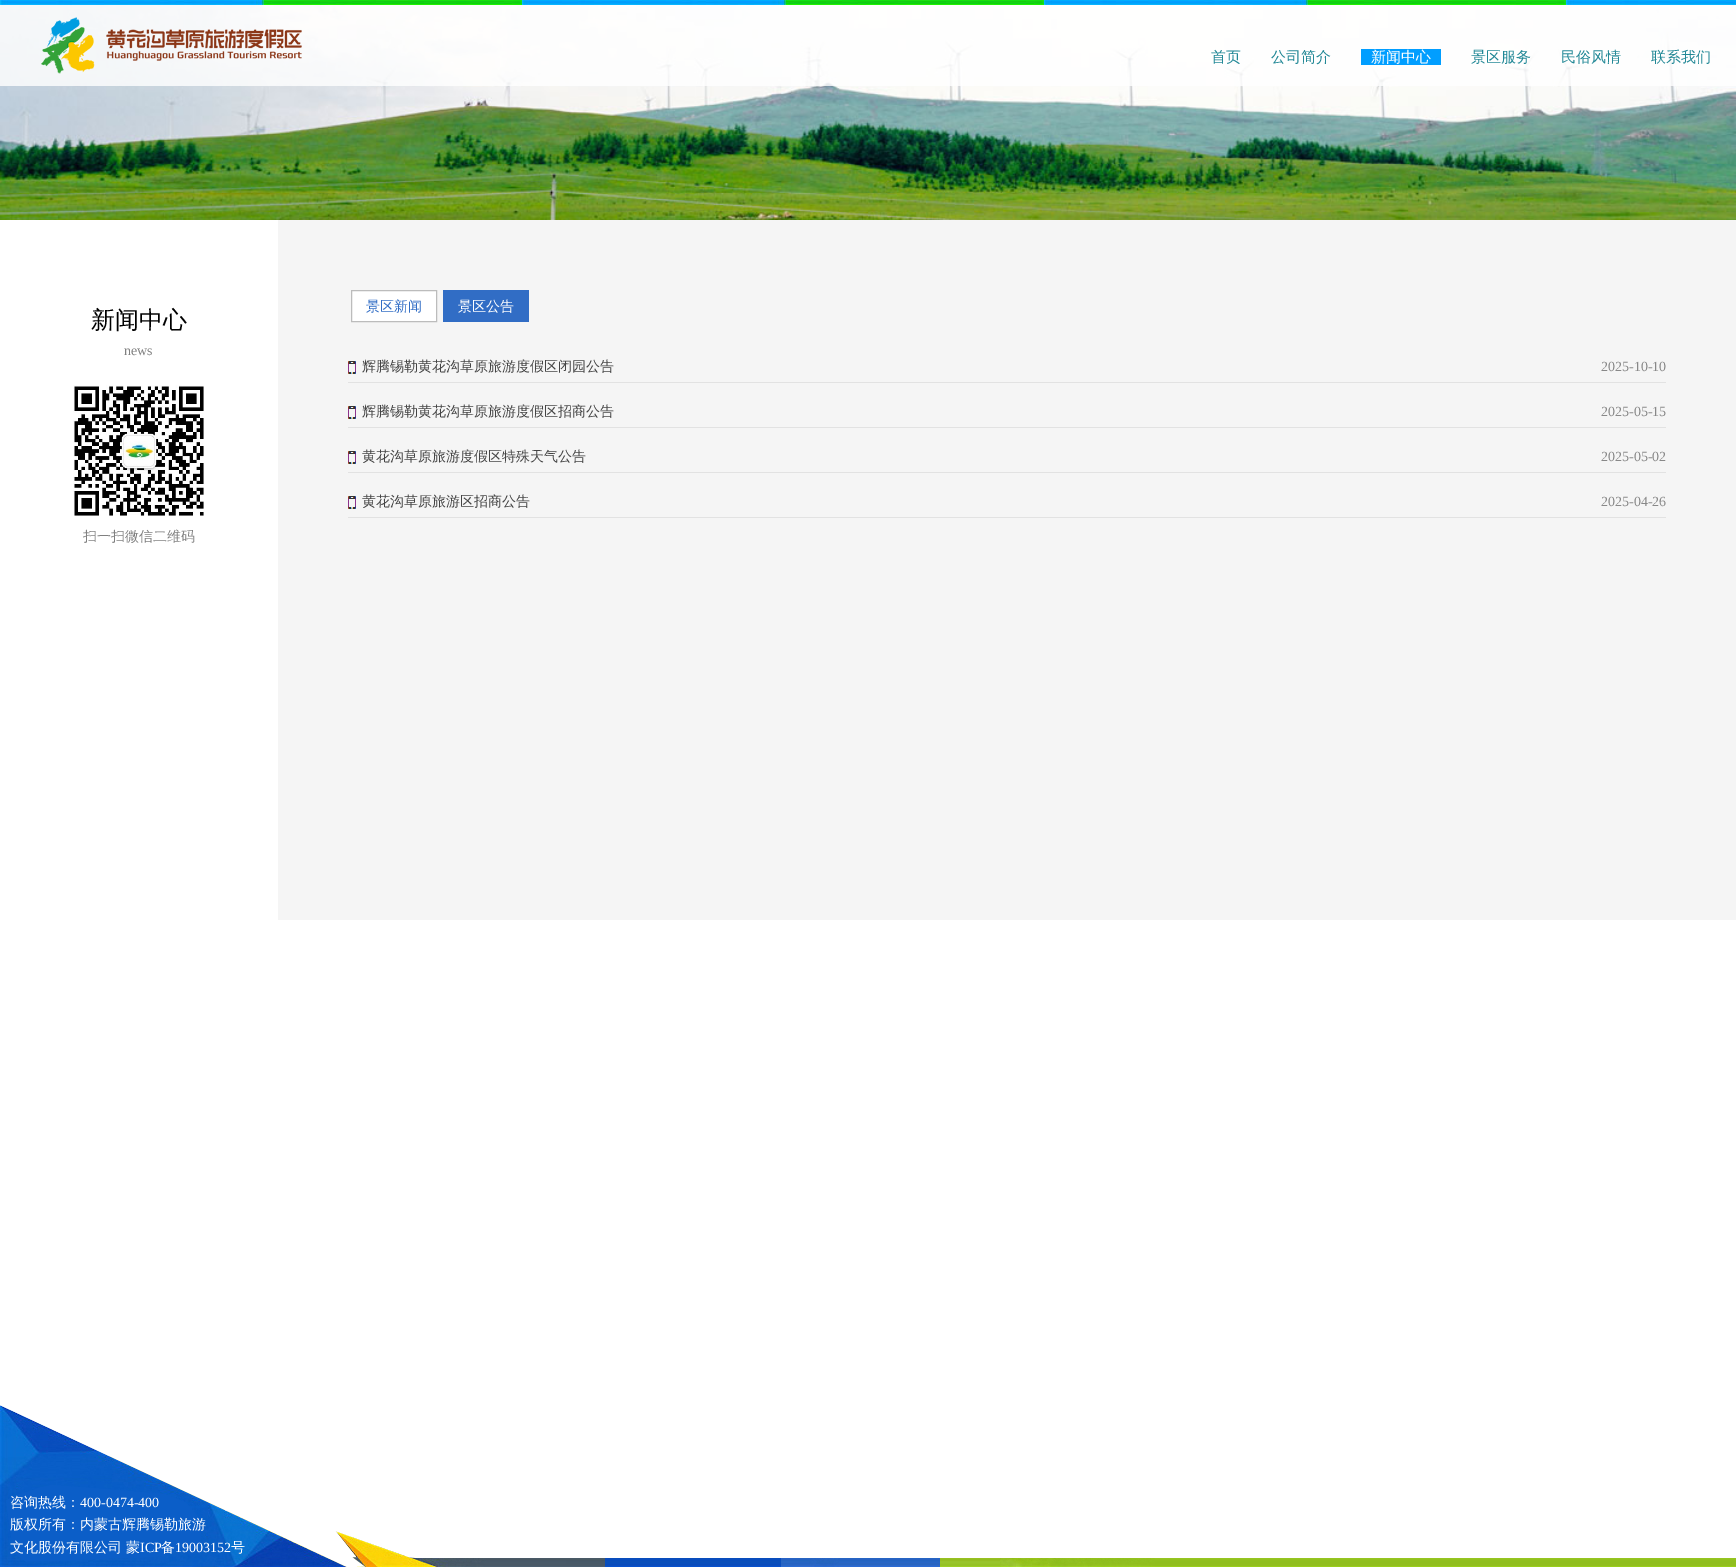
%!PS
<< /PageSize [1736 1567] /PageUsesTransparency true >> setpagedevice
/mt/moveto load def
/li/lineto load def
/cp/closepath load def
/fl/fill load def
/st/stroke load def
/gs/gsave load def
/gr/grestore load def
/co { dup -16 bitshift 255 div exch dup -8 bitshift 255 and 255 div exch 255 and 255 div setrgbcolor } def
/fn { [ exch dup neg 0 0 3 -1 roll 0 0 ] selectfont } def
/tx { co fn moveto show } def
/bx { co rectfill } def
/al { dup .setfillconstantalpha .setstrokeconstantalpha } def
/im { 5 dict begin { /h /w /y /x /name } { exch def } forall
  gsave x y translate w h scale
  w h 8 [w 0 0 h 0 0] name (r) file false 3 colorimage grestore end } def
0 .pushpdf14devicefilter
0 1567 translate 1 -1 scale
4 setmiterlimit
0 0 1736 1567 16#FFFFFF bx
(media/1.raw) 0 5 1736 215 im
(media/2.raw) 0 0 1736 5 im
0.8 al
0 5 1736 81 16#FFFFFF bx
1 al
(media/3.raw) 41 17 261 57 im
1361 49 80 16 16#019EFF bx
(media/4.raw) 73 385 131 131 im
278 220 1458 700 16#F5F5F5 bx
16#FFFFFF co
351.5 290.5 mt 436.5 290.5 li 436.5 321.5 li 351.5 321.5 li cp gs fl gr
16#BCBCBC co
st
443 290 86 32 16#316DC5 bx
(media/5.raw) 348 361 8 13 im
348 382 1318 1 16#E2E2E2 bx
(media/5.raw) 348 406 8 13 im
348 427 1318 1 16#E2E2E2 bx
(media/5.raw) 348 451 8 13 im
348 472 1318 1 16#E2E2E2 bx
(media/5.raw) 348 496 8 13 im
348 517 1318 1 16#E2E2E2 bx
(media/6.raw) 0 1405 1736 162 im
(首页) 1211 62 /WenQuanYiZenHei-Medium 15 16#228896 tx
(公司简介) 1271 62 /WenQuanYiZenHei-Medium 15 16#228896 tx
(新闻中心) 1371 62 /WenQuanYiZenHei-Medium 15 16#FFFFFF tx
(景区服务) 1471 62 /WenQuanYiZenHei-Medium 15 16#228896 tx
(民俗风情) 1561 62 /WenQuanYiZenHei-Medium 15 16#228896 tx
(联系我们) 1651 62 /WenQuanYiZenHei-Medium 15 16#228896 tx
(新闻中心) 91 328 /WenQuanYiZenHei-Medium 24 16#000000 tx
(news) 124 355 /LiberationSerif-Regular 14 16#808080 tx
(扫一扫微信二维码) 83 541 /WenQuanYiZenHei-Medium 14 16#808080 tx
(景区新闻) 366 311 /WenQuanYiZenHei-Medium 14 16#316DC5 tx
(景区公告) 458 311 /WenQuanYiZenHei-Medium 14 16#FFFFFF tx
(辉腾锡勒黄花沟草原旅游度假区闭园公告) 362 371 /WenQuanYiZenHei-Medium 14 16#444444 tx
(2025-10-10) 1601 371 /LiberationSerif-Regular 14 16#888888 tx
(辉腾锡勒黄花沟草原旅游度假区招商公告) 362 416 /WenQuanYiZenHei-Medium 14 16#444444 tx
(2025-05-15) 1601 416 /LiberationSerif-Regular 14 16#888888 tx
(黄花沟草原旅游度假区特殊天气公告) 362 461 /WenQuanYiZenHei-Medium 14 16#444444 tx
(2025-05-02) 1601 461 /LiberationSerif-Regular 14 16#888888 tx
(黄花沟草原旅游区招商公告) 362 506 /WenQuanYiZenHei-Medium 14 16#444444 tx
(2025-04-26) 1601 506 /LiberationSerif-Regular 14 16#888888 tx
(咨询热线：) 10 1507 /WenQuanYiZenHei-Medium 14 16#FFFFFF tx
(400-0474-400) 80 1507 /LiberationSerif-Regular 14 16#FFFFFF tx
(版权所有：内蒙古辉腾锡勒旅游) 10 1529 /WenQuanYiZenHei-Medium 14 16#FFFFFF tx
(文化股份有限公司) 10 1552 /WenQuanYiZenHei-Medium 14 16#FFFFFF tx
(蒙) 126 1552 /WenQuanYiZenHei-Medium 14 16#FFFFFF tx
(ICP) 140 1552 /LiberationSerif-Regular 14 16#FFFFFF tx
(备) 161 1552 /WenQuanYiZenHei-Medium 14 16#FFFFFF tx
(19003152) 175 1552 /LiberationSerif-Regular 14 16#FFFFFF tx
(号) 231 1552 /WenQuanYiZenHei-Medium 14 16#FFFFFF tx
.poppdf14devicefilter showpage
